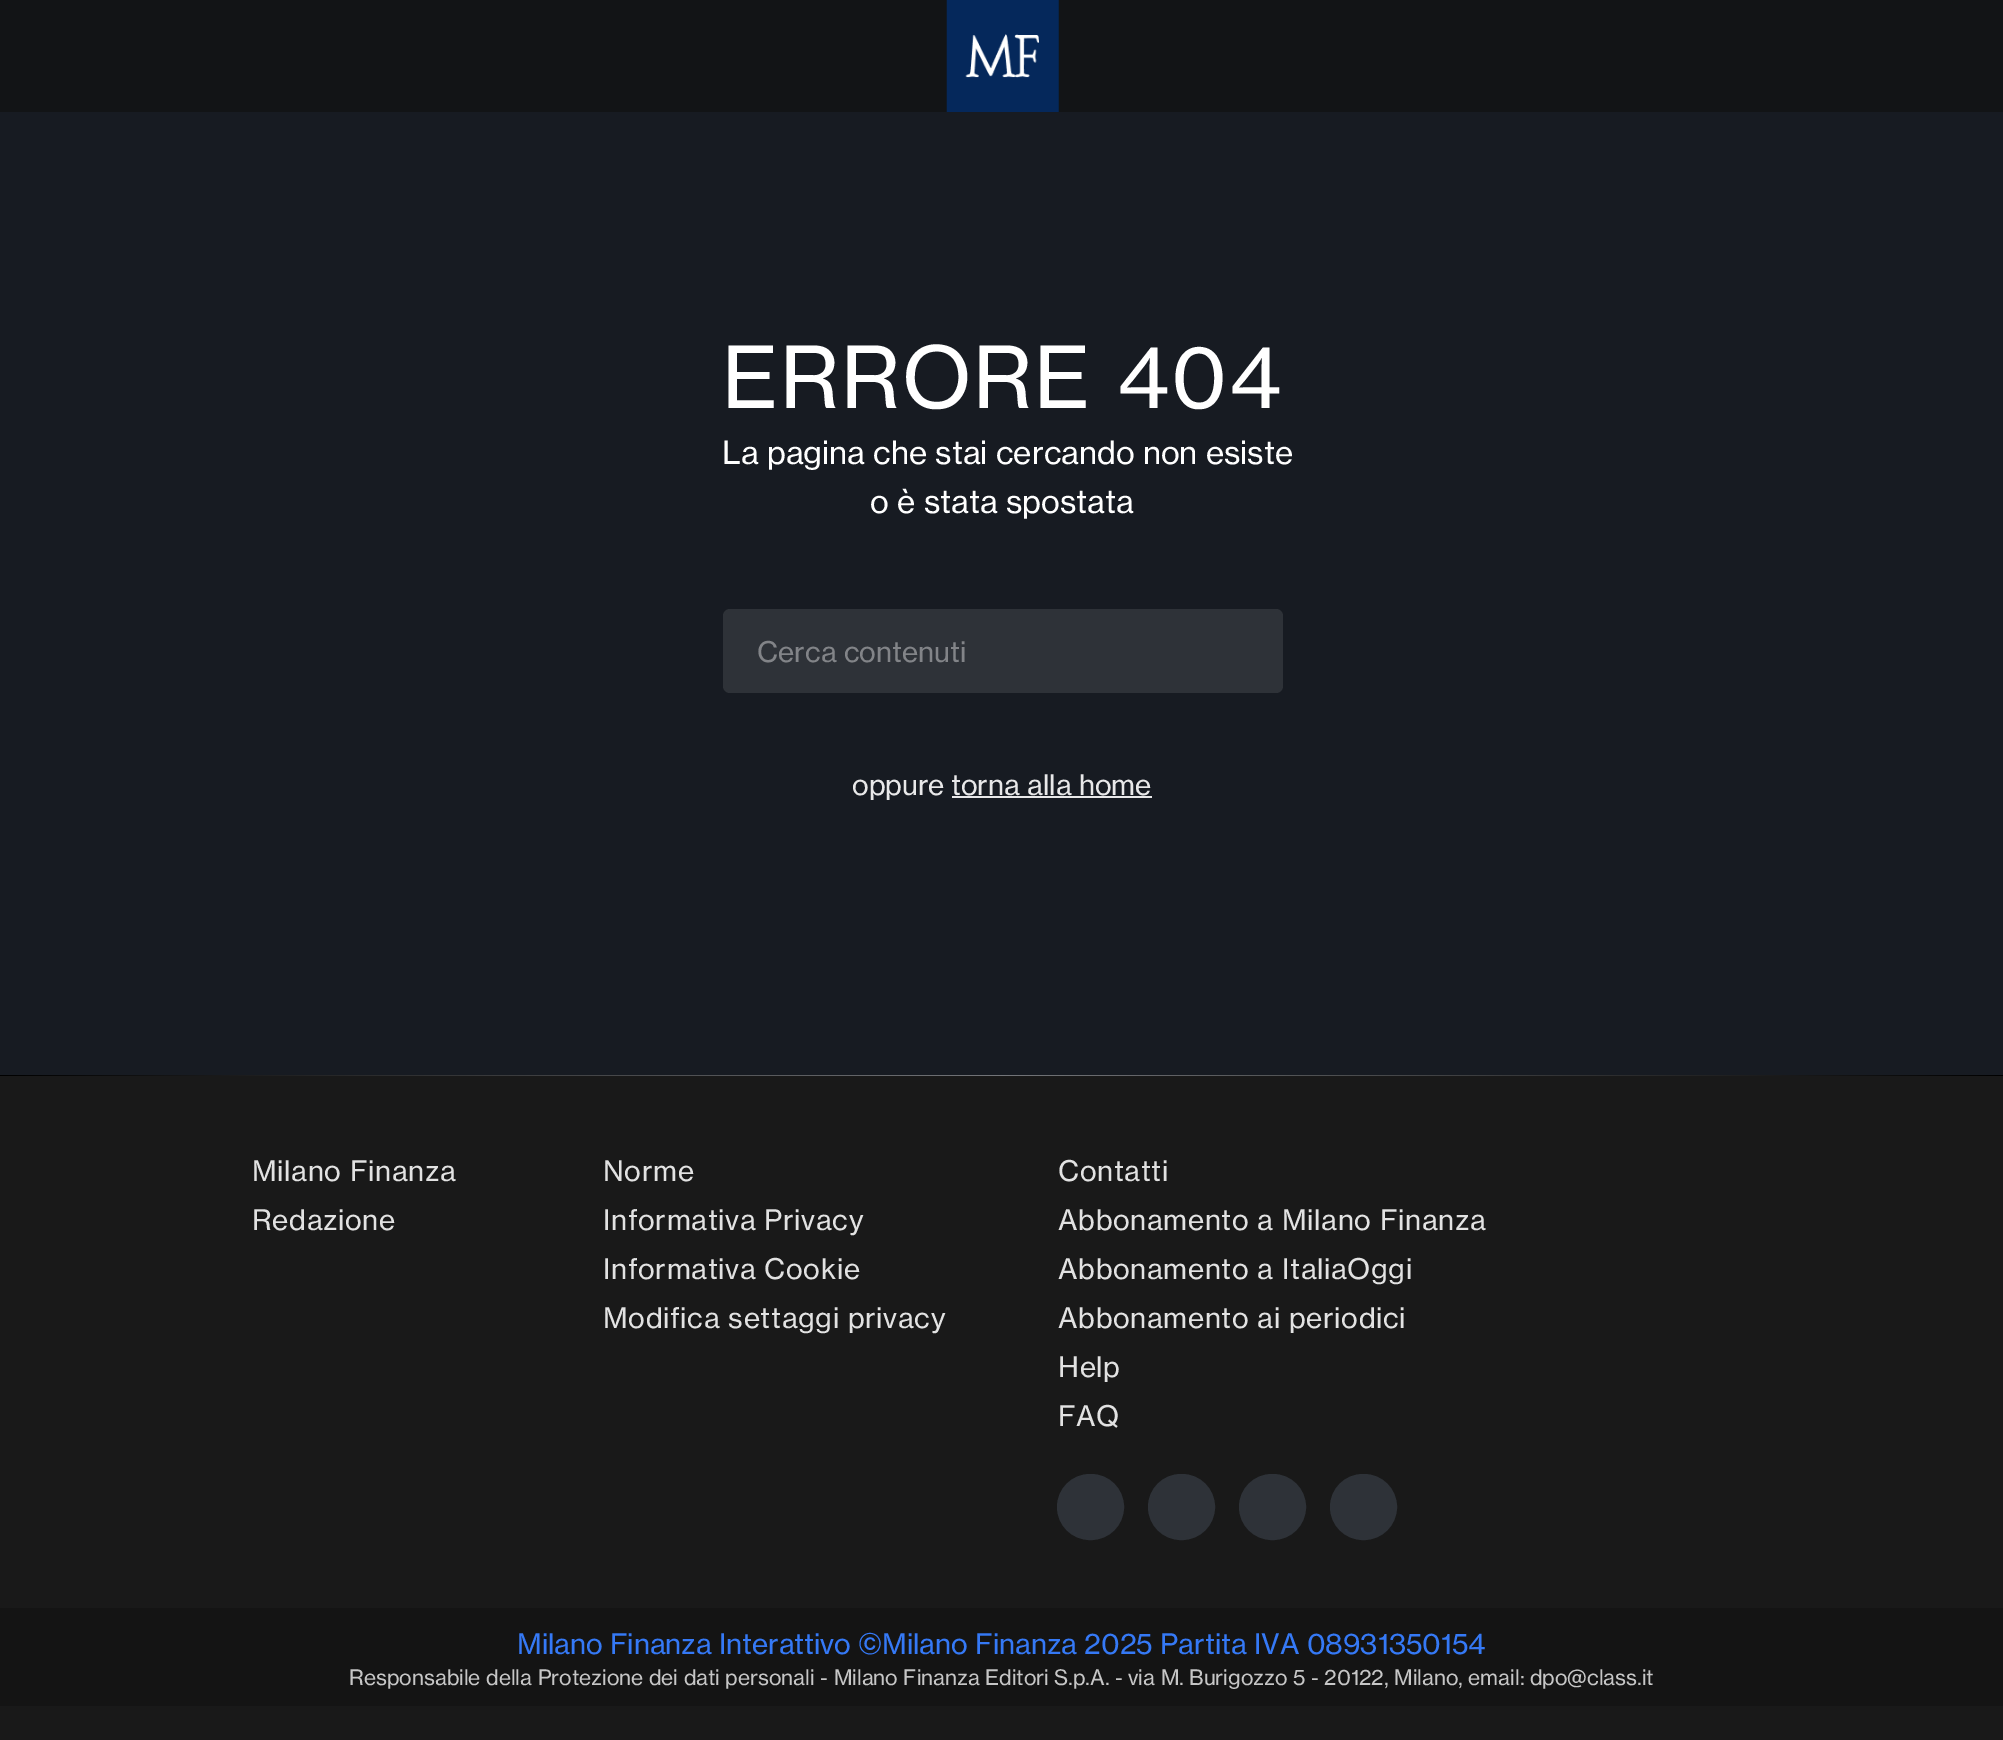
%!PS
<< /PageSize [2003 1740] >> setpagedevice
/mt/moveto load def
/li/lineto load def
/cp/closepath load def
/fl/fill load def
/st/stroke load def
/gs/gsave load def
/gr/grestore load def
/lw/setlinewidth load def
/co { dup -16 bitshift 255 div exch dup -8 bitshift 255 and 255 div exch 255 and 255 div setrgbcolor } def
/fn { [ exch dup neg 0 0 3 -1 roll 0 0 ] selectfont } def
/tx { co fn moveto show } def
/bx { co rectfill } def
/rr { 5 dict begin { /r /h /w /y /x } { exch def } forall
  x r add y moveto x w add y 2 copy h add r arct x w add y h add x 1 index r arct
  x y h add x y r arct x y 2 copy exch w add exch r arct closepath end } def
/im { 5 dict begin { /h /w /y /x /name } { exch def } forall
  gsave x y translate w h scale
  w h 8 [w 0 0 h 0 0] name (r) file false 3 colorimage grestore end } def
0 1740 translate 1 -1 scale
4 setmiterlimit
0 0 2003 1740 16#171B22 bx
0 0 2003 112 16#121416 bx
(media/1.raw) 946 0 113 112 im
16#2E3238 co
723 609 560 84 7 rr fl
952 796 200 2 16#E8E8E9 bx
gs 0 1075 mt 2003 1075 li 2003 1076 li 0 1076 li cp clip newpath
<< /ShadingType 2 /ColorSpace /DeviceRGB /Coords [0 1075 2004 1075] /Extend [true true] /Function << /FunctionType 3 /Domain [0 1] /Functions [<< /FunctionType 2 /Domain [0 1] /C0 [0 0 0] /C1 [.455 .463 .478] /N 1 >> << /FunctionType 2 /Domain [0 1] /C0 [.455 .463 .478] /C1 [0 0 0] /N 1 >>] /Bounds [.5] /Encode [0 1 0 1] >> >> shfill gr
0 1076 2003 532 16#191919 bx
16#2E3238 co
1058 1475 65 64 32 rr gs fl gr
2 lw
st
1149 1475 65 64 32 rr gs fl gr
st
1240 1475 65 64 32 rr gs fl gr
st
1331 1475 65 64 32 rr gs fl gr
st
0 1608 2003 98 16#141414 bx
0 1706 2003 34 16#191919 bx
/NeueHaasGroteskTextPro-Regular 84 fn
16#FFFFFF co
722 408 mt 2.1 0 (ERRORE 404) ashow
(La pagina che stai cercando non esiste) 722 464 /NeueHaasGroteskTextPro-Regular 31.5 16#FFFFFF tx
(o è stata spostata) 870 513 /NeueHaasGroteskTextPro-Regular 31.5 16#FFFFFF tx
(Cerca contenuti) 757 662 /NeueHaasGroteskTextPro-Regular 28 16#828488 tx
(oppure) 852 795 /NeueHaasGroteskTextPro-Regular 28 16#E8E8E9 tx
(torna alla home) 951 795 /NeueHaasGroteskTextPro-Regular 28 16#E8E8E9 tx
16#E2E2E2 co
252 1181 mt .7 0 (Milano Finanza) ashow
252 1230 mt .7 0 (Redazione) ashow
603 1181 mt .7 0 (Norme) ashow
603 1230 mt .7 0 (Informativa Privacy) ashow
603 1279 mt .7 0 (Informativa Cookie) ashow
603 1328 mt .7 0 (Modifica settaggi privacy) ashow
1058 1181 mt .7 0 (Contatti) ashow
1058 1230 mt .7 0 (Abbonamento a Milano Finanza) ashow
1058 1279 mt .7 0 (Abbonamento a ItaliaOggi) ashow
1058 1328 mt .7 0 (Abbonamento ai periodici) ashow
1058 1377 mt .7 0 (Help) ashow
1058 1426 mt .7 0 (FAQ) ashow
(Milano Finanza Interattivo ©Milano Finanza 2025 Partita IVA 08931350154) 517 1654 /NeueHaasGroteskTextPro-Regular 28 16#3579F6 tx
(Responsabile della Protezione dei dati personali - Milano Finanza Editori S.p.A. - via M. Burigozzo 5 - 20122, Milano, email: dpo@class.it) 349 1685 /NeueHaasGroteskTextPro-Regular 21 16#C6C6C6 tx
showpage
